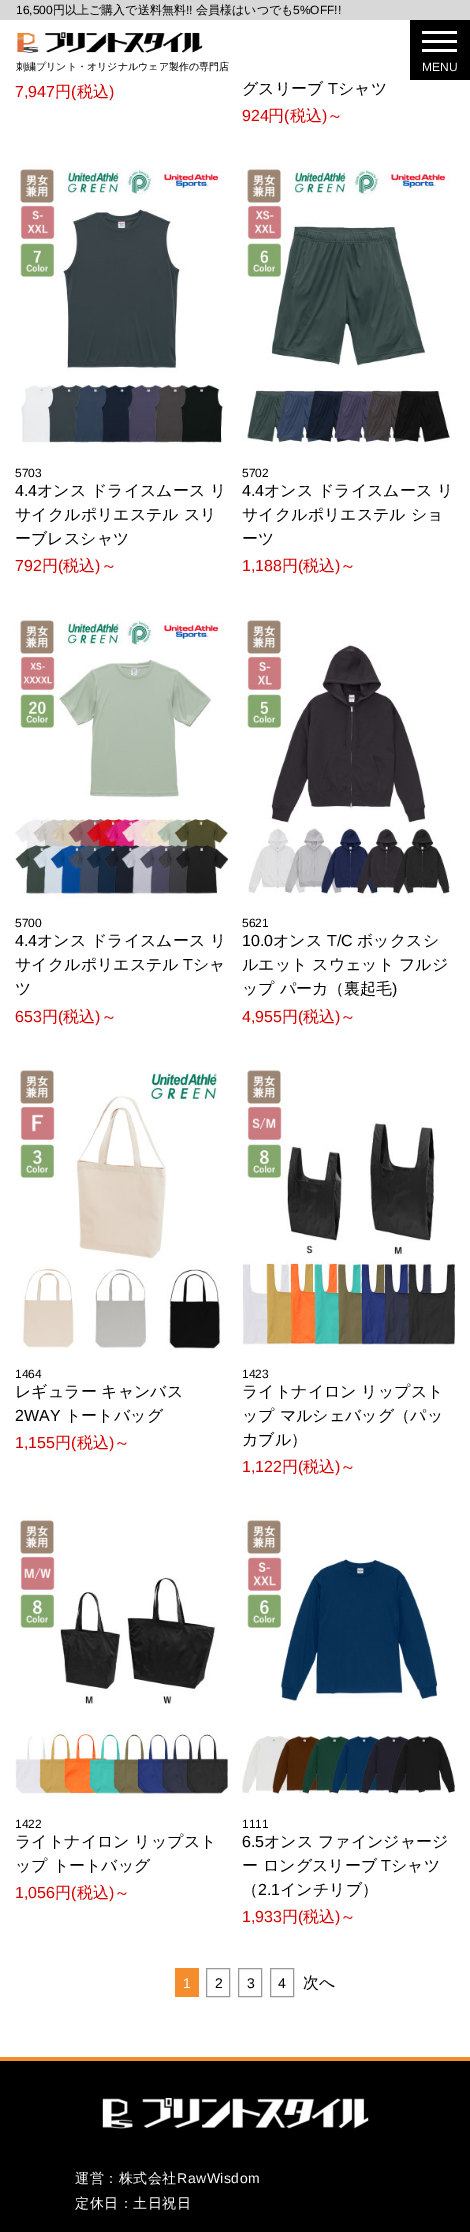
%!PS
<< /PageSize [470 2232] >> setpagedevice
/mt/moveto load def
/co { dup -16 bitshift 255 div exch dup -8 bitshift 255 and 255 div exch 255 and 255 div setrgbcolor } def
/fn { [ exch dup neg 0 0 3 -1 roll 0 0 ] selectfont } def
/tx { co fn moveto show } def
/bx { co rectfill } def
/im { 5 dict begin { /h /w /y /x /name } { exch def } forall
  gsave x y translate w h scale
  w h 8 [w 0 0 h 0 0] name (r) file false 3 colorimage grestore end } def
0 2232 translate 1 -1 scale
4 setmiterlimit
0 0 470 2232 16#FFFFFF bx
0 0 470 20 16#D8D8D8 bx
(media/1.raw) 17 32 186 21 im
410 20 60 60 16#000000 bx
422 31 35 3 16#FFFFFF bx
422 40 35 3 16#FFFFFF bx
422 49 35 3 16#FFFFFF bx
(media/2.raw) 15 164 208 280 im
(media/3.raw) 242 164 208 281 im
(media/4.raw) 15 615 213 284 im
(media/5.raw) 242 615 208 283 im
(media/6.raw) 15 1065 206 284 im
(media/7.raw) 242 1065 213 284 im
(media/8.raw) 15 1515 213 284 im
(media/9.raw) 242 1515 213 284 im
175 1968 24 29 16#F48E2C bx
16#999999 co
206.5 1968.5 23 28 rectstroke
238.5 1968.5 23 28 rectstroke
270.5 1968.5 23 28 rectstroke
0 2061 470 171 16#000000 bx
0 2057 470 4 16#F48E2C bx
(media/10.raw) 102 2098 267 31 im
(16,500) 16 14 /LiberationSans-Regular 12 16#000000 tx
(円以上ご購入で送料無料) 53 14 /WenQuanYiZenHei-Medium 12 16#000000 tx
(!!) 186 14 /LiberationSans-Regular 12 16#000000 tx
(会員様はいつでも) 196 14 /WenQuanYiZenHei-Medium 12 16#000000 tx
(5%OFF!!) 293 14 /LiberationSans-Regular 12 16#000000 tx
(刺繍プリント・オリジナルウェア製作の専門店) 16 70 /WenQuanYiZenHei-Medium 10 16#000000 tx
(MENU) 422 71 /LiberationSans-Regular 12 16#FFFFFF tx
(7,947) 15 97 /LiberationSans-Regular 16 16#D60000 tx
(円) 55 97 /WenQuanYiZenHei-Medium 16 16#D60000 tx
(\() 71 97 /LiberationSans-Regular 16 16#D60000 tx
(税込) 77 97 /WenQuanYiZenHei-Medium 16 16#D60000 tx
(\)) 109 97 /LiberationSans-Regular 16 16#D60000 tx
(グスリーブ) 242 94 /WenQuanYiZenHei-Medium 16 16#000000 tx
(T) 328 94 /LiberationSans-Regular 16 16#000000 tx
(シャツ) 338 94 /WenQuanYiZenHei-Medium 16 16#000000 tx
(924) 242 121 /LiberationSans-Regular 16 16#D60000 tx
(円) 268 121 /WenQuanYiZenHei-Medium 16 16#D60000 tx
(\() 284 121 /LiberationSans-Regular 16 16#D60000 tx
(税込) 290 121 /WenQuanYiZenHei-Medium 16 16#D60000 tx
(\)) 322 121 /LiberationSans-Regular 16 16#D60000 tx
(～) 327 121 /WenQuanYiZenHei-Medium 16 16#D60000 tx
(5703) 15 477 /LiberationSans-Regular 12 16#000000 tx
(4.4) 15 496 /LiberationSans-Regular 16 16#000000 tx
(オンス ドライスムース リ) 37 496 /WenQuanYiZenHei-Medium 16 16#000000 tx
(サイクルポリエステル スリ) 15 520 /WenQuanYiZenHei-Medium 16 16#000000 tx
(ーブレスシャツ) 15 544 /WenQuanYiZenHei-Medium 16 16#000000 tx
(792) 15 571 /LiberationSans-Regular 16 16#D60000 tx
(円) 42 571 /WenQuanYiZenHei-Medium 16 16#D60000 tx
(\() 58 571 /LiberationSans-Regular 16 16#D60000 tx
(税込) 63 571 /WenQuanYiZenHei-Medium 16 16#D60000 tx
(\)) 95 571 /LiberationSans-Regular 16 16#D60000 tx
(～) 101 571 /WenQuanYiZenHei-Medium 16 16#D60000 tx
(5702) 242 477 /LiberationSans-Regular 12 16#000000 tx
(4.4) 242 496 /LiberationSans-Regular 16 16#000000 tx
(オンス ドライスムース リ) 264 496 /WenQuanYiZenHei-Medium 16 16#000000 tx
(サイクルポリエステル ショ) 242 520 /WenQuanYiZenHei-Medium 16 16#000000 tx
(ーツ) 242 544 /WenQuanYiZenHei-Medium 16 16#000000 tx
(1,188) 242 571 /LiberationSans-Regular 16 16#D60000 tx
(円) 282 571 /WenQuanYiZenHei-Medium 16 16#D60000 tx
(\() 298 571 /LiberationSans-Regular 16 16#D60000 tx
(税込) 303 571 /WenQuanYiZenHei-Medium 16 16#D60000 tx
(\)) 335 571 /LiberationSans-Regular 16 16#D60000 tx
(～) 340 571 /WenQuanYiZenHei-Medium 16 16#D60000 tx
(5700) 15 927 /LiberationSans-Regular 12 16#000000 tx
(4.4) 15 946 /LiberationSans-Regular 16 16#000000 tx
(オンス ドライスムース リ) 37 946 /WenQuanYiZenHei-Medium 16 16#000000 tx
(サイクルポリエステル) 15 970 /WenQuanYiZenHei-Medium 16 16#000000 tx
(T) 183 970 /LiberationSans-Regular 16 16#000000 tx
(シャ) 193 970 /WenQuanYiZenHei-Medium 16 16#000000 tx
(ツ) 15 994 /WenQuanYiZenHei-Medium 16 16#000000 tx
(653) 15 1022 /LiberationSans-Regular 16 16#D60000 tx
(円) 42 1022 /WenQuanYiZenHei-Medium 16 16#D60000 tx
(\() 58 1022 /LiberationSans-Regular 16 16#D60000 tx
(税込) 63 1022 /WenQuanYiZenHei-Medium 16 16#D60000 tx
(\)) 95 1022 /LiberationSans-Regular 16 16#D60000 tx
(～) 101 1022 /WenQuanYiZenHei-Medium 16 16#D60000 tx
(5621) 242 927 /LiberationSans-Regular 12 16#000000 tx
(10.0) 242 946 /LiberationSans-Regular 16 16#000000 tx
(オンス) 273 946 /WenQuanYiZenHei-Medium 16 16#000000 tx
(T/C) 327 946 /LiberationSans-Regular 16 16#000000 tx
(ボックスシ) 357 946 /WenQuanYiZenHei-Medium 16 16#000000 tx
(ルエット スウェット フルジ) 242 970 /WenQuanYiZenHei-Medium 16 16#000000 tx
(ップ パーカ（裏起毛) 242 994 /WenQuanYiZenHei-Medium 16 16#000000 tx
(\)) 392 994 /LiberationSans-Regular 16 16#000000 tx
(4,955) 242 1022 /LiberationSans-Regular 16 16#D60000 tx
(円) 282 1022 /WenQuanYiZenHei-Medium 16 16#D60000 tx
(\() 298 1022 /LiberationSans-Regular 16 16#D60000 tx
(税込) 303 1022 /WenQuanYiZenHei-Medium 16 16#D60000 tx
(\)) 335 1022 /LiberationSans-Regular 16 16#D60000 tx
(～) 340 1022 /WenQuanYiZenHei-Medium 16 16#D60000 tx
(1464) 15 1378 /LiberationSans-Regular 12 16#000000 tx
(レギュラー キャンバス) 15 1397 /WenQuanYiZenHei-Medium 16 16#000000 tx
(2WAY) 15 1421 /LiberationSans-Regular 16 16#000000 tx
(トートバッグ) 65 1421 /WenQuanYiZenHei-Medium 16 16#000000 tx
(1,155) 15 1448 /LiberationSans-Regular 16 16#D60000 tx
(円) 55 1448 /WenQuanYiZenHei-Medium 16 16#D60000 tx
(\() 71 1448 /LiberationSans-Regular 16 16#D60000 tx
(税込) 77 1448 /WenQuanYiZenHei-Medium 16 16#D60000 tx
(\)) 109 1448 /LiberationSans-Regular 16 16#D60000 tx
(～) 114 1448 /WenQuanYiZenHei-Medium 16 16#D60000 tx
(1423) 242 1378 /LiberationSans-Regular 12 16#000000 tx
(ライトナイロン リップスト) 242 1397 /WenQuanYiZenHei-Medium 16 16#000000 tx
(ップ マルシェバッグ（パッ) 242 1421 /WenQuanYiZenHei-Medium 16 16#000000 tx
(カブル）) 242 1445 /WenQuanYiZenHei-Medium 16 16#000000 tx
(1,122) 242 1472 /LiberationSans-Regular 16 16#D60000 tx
(円) 282 1472 /WenQuanYiZenHei-Medium 16 16#D60000 tx
(\() 298 1472 /LiberationSans-Regular 16 16#D60000 tx
(税込) 303 1472 /WenQuanYiZenHei-Medium 16 16#D60000 tx
(\)) 335 1472 /LiberationSans-Regular 16 16#D60000 tx
(～) 340 1472 /WenQuanYiZenHei-Medium 16 16#D60000 tx
(1422) 15 1828 /LiberationSans-Regular 12 16#000000 tx
(ライトナイロン リップスト) 15 1847 /WenQuanYiZenHei-Medium 16 16#000000 tx
(ップ トートバッグ) 15 1871 /WenQuanYiZenHei-Medium 16 16#000000 tx
(1,056) 15 1898 /LiberationSans-Regular 16 16#D60000 tx
(円) 55 1898 /WenQuanYiZenHei-Medium 16 16#D60000 tx
(\() 71 1898 /LiberationSans-Regular 16 16#D60000 tx
(税込) 77 1898 /WenQuanYiZenHei-Medium 16 16#D60000 tx
(\)) 109 1898 /LiberationSans-Regular 16 16#D60000 tx
(～) 114 1898 /WenQuanYiZenHei-Medium 16 16#D60000 tx
(1111) 242 1828 /LiberationSans-Regular 12 16#000000 tx
(6.5) 242 1847 /LiberationSans-Regular 16 16#000000 tx
(オンス ファインジャージ) 264 1847 /WenQuanYiZenHei-Medium 16 16#000000 tx
(ー ロングスリーブ) 242 1871 /WenQuanYiZenHei-Medium 16 16#000000 tx
(T) 381 1871 /LiberationSans-Regular 16 16#000000 tx
(シャツ) 391 1871 /WenQuanYiZenHei-Medium 16 16#000000 tx
(（) 242 1895 /WenQuanYiZenHei-Medium 16 16#000000 tx
(2.1) 258 1895 /LiberationSans-Regular 16 16#000000 tx
(インチリブ）) 280 1895 /WenQuanYiZenHei-Medium 16 16#000000 tx
(1,933) 242 1922 /LiberationSans-Regular 16 16#D60000 tx
(円) 282 1922 /WenQuanYiZenHei-Medium 16 16#D60000 tx
(\() 298 1922 /LiberationSans-Regular 16 16#D60000 tx
(税込) 303 1922 /WenQuanYiZenHei-Medium 16 16#D60000 tx
(\)) 335 1922 /LiberationSans-Regular 16 16#D60000 tx
(～) 340 1922 /WenQuanYiZenHei-Medium 16 16#D60000 tx
(1) 183 1988 /LiberationSans-Regular 14 16#FFFFFF tx
(2) 215 1988 /LiberationSans-Regular 14 16#000000 tx
(3) 247 1988 /LiberationSans-Regular 14 16#000000 tx
(4) 278 1988 /LiberationSans-Regular 14 16#000000 tx
(次へ) 303 1988 /WenQuanYiZenHei-Medium 16 16#000000 tx
/WenQuanYiZenHei-Medium 14 fn
16#FFFFFF co
75 2183 mt .5 0 (運営：株式会社) ashow
/LiberationSans-Regular 14 fn
177 2183 mt .5 0 (RawWisdom) ashow
/WenQuanYiZenHei-Medium 14 fn
75 2208 mt .5 0 (定休日：土日祝日) ashow
showpage
